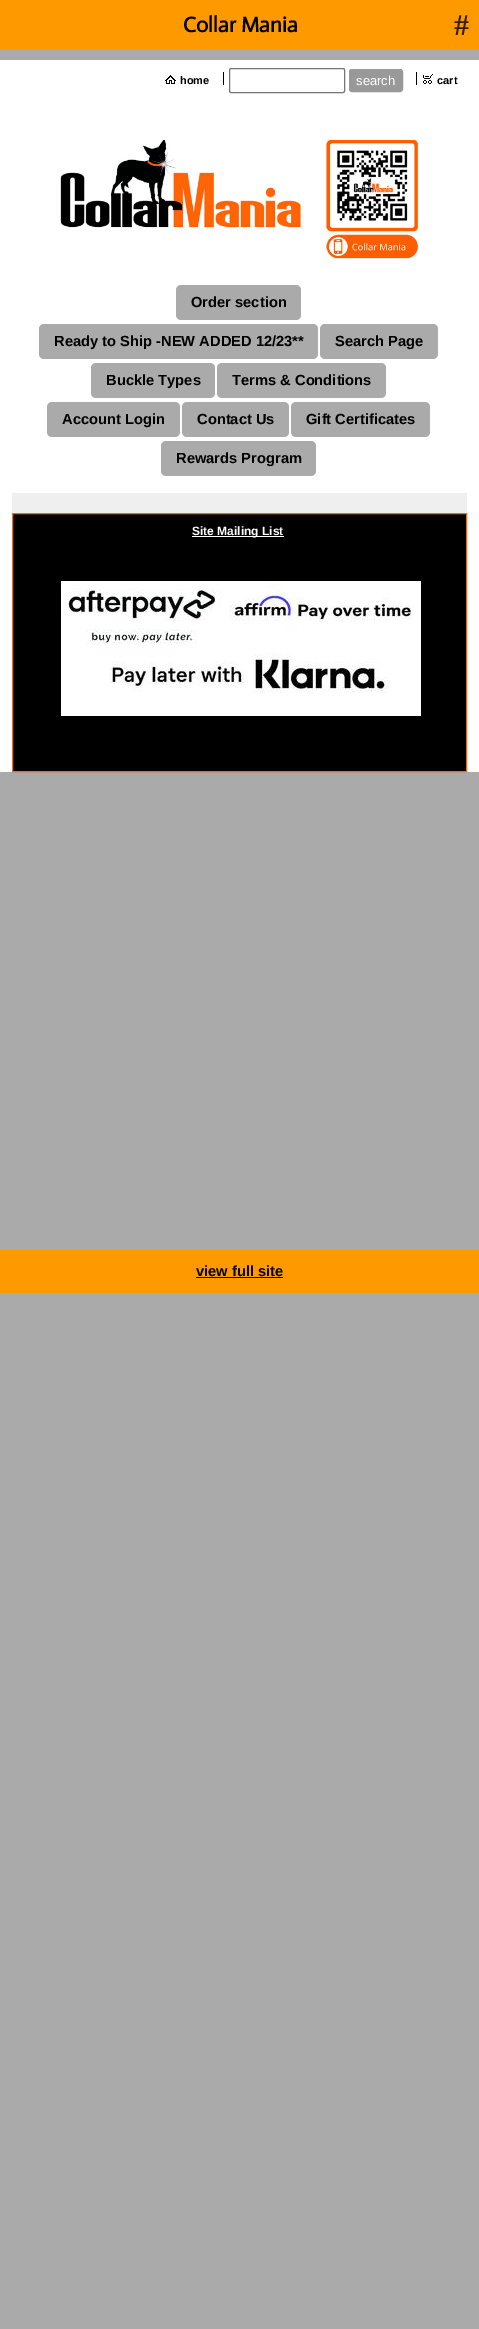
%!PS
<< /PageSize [479 2329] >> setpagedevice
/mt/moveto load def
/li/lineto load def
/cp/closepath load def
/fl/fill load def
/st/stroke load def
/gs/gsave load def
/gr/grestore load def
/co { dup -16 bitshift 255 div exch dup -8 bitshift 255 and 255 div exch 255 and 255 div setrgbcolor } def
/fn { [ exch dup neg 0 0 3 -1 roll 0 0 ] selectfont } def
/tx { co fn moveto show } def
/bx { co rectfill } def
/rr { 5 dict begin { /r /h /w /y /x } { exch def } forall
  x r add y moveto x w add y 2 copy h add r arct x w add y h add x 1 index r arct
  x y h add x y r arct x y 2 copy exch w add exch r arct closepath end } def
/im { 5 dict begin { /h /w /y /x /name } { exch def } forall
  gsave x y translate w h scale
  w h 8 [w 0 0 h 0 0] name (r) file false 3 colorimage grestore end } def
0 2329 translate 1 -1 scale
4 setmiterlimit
0 0 479 2329 16#AAAAAA bx
0 0 479 50 16#FF9900 bx
0 60 479 712 16#FFFFFF bx
(media/1.raw) 165 75 11 9 im
223 72 1 13 16#000000 bx
16#767676 co
229.5 68.5 115 24 1.5 rr st
16#999999 co
349.5 69.5 53 22 2.5 rr gs fl gr
st
416 72 1 13 16#000000 bx
(media/2.raw) 423 74 10 10 im
(media/3.raw) 60 140 358 119 im
16#AAAAAA co
176 285 125 35 5 rr fl
39 324 279 35 5 rr fl
320 324 118 35 5 rr fl
91 363 124 35 5 rr fl
217 363 169 35 5 rr fl
47 402 133 35 5 rr fl
182 402 107 35 5 rr fl
291 402 139 35 5 rr fl
161 441 155 35 5 rr fl
12 493 455 20 16#EFEFEF bx
16#000000 co
12.5 513.5 mt 466.5 513.5 li 466.5 771.5 li 12.5 771.5 li cp gs fl gr
16#FF6600 co
st
192 536 92 1 16#FFFFFF bx
(media/4.raw) 61 581 360 135 im
0 1250 479 43 16#FF9900 bx
196 1277 87 1 16#000000 bx
(Collar Mania) 183 32 /Actor-Bold 21.5 16#000000 tx
(#) 454 35 /LiberationSerif-Bold 30 16#331F00 tx
(home) 180 84 /LiberationSans-Bold 11 16#000000 tx
(search) 356 85 /LiberationSans-Regular 13 16#FFFFFF tx
(cart) 437 84 /LiberationSans-Bold 11 16#000000 tx
(Order section) 191 307 /LiberationSans-Bold 14.7 16#000000 tx
(Ready to Ship -NEW ADDED 12/23**) 54 346 /LiberationSans-Bold 14.7 16#000000 tx
(Search Page) 335 346 /LiberationSans-Bold 14.7 16#000000 tx
(Buckle Types) 106 385 /LiberationSans-Bold 14.7 16#000000 tx
(Terms & Conditions) 232 385 /LiberationSans-Bold 14.7 16#000000 tx
(Account Login) 62 424 /LiberationSans-Bold 14.7 16#000000 tx
(Contact Us) 197 424 /LiberationSans-Bold 14.7 16#000000 tx
(Gift Certificates) 306 424 /LiberationSans-Bold 14.7 16#000000 tx
(Rewards Program) 176 463 /LiberationSans-Bold 14.7 16#000000 tx
(Site Mailing List) 192 535 /LiberationSans-Bold 12 16#FFFFFF tx
(view full site) 196 1276 /LiberationSans-Bold 14.7 16#000000 tx
showpage
